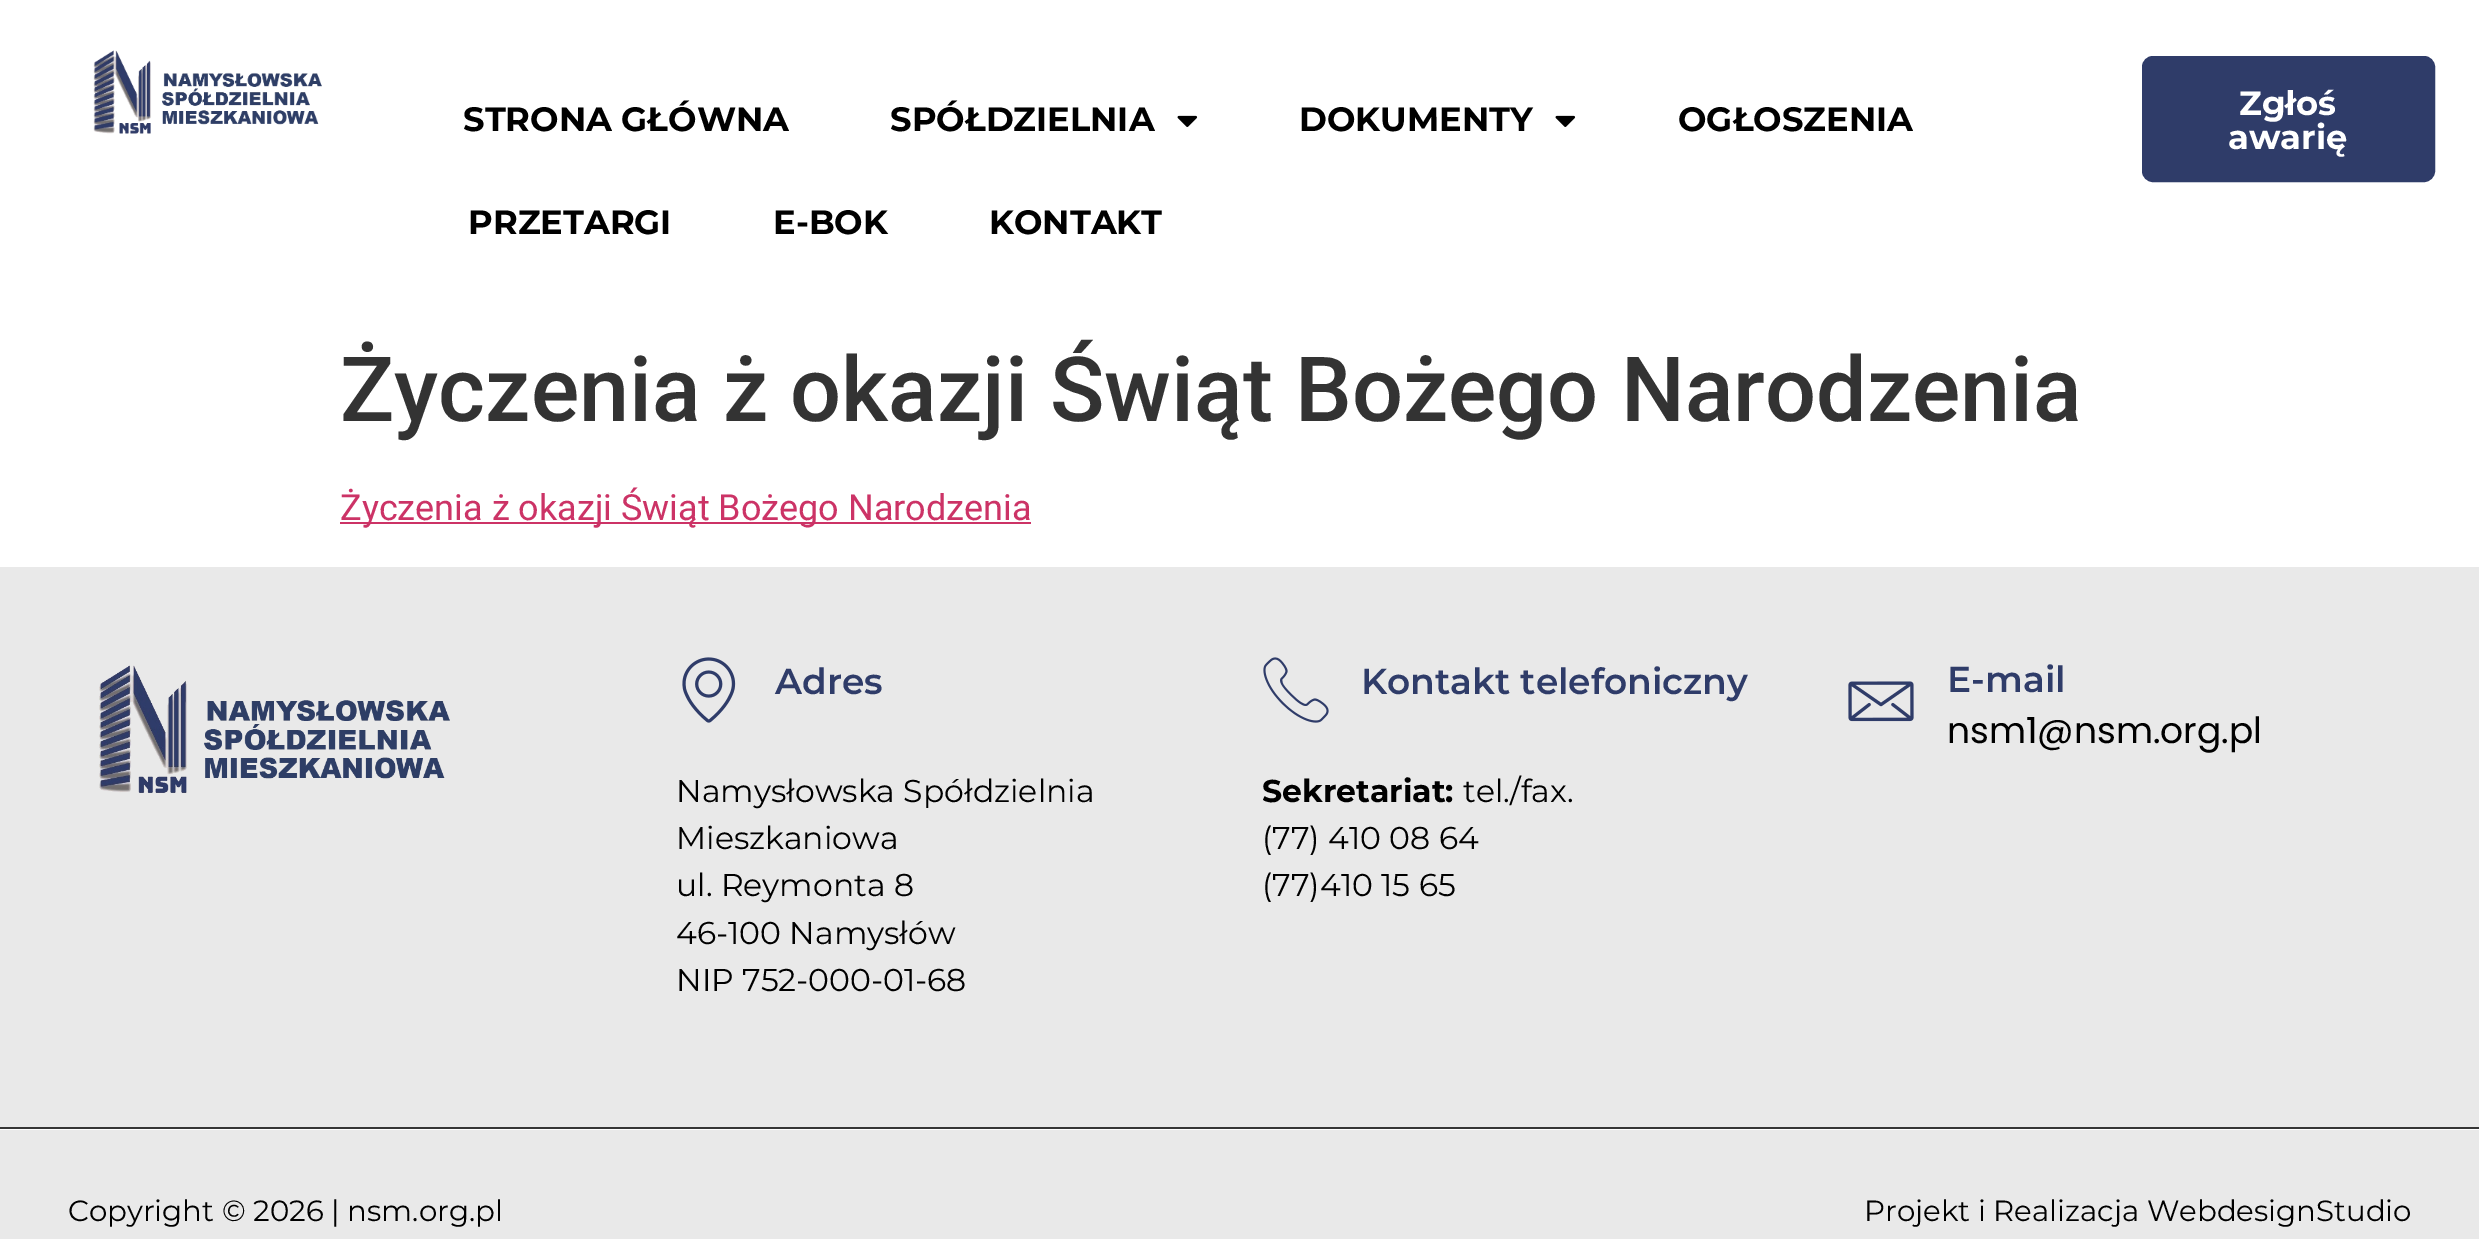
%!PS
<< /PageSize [2479 1239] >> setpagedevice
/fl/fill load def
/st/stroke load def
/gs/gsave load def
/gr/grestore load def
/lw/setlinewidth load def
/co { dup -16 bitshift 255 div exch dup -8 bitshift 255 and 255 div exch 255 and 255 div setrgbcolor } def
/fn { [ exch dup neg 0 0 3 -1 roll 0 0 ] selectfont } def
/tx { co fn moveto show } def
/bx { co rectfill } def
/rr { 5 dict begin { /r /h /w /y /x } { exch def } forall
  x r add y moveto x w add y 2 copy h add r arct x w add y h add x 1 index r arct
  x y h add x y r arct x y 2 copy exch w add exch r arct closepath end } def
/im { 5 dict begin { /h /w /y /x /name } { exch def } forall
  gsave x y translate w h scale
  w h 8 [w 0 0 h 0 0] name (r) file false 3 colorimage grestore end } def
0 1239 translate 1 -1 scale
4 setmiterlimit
0 0 2479 1239 16#FFFFFF bx
(media/1.raw) 93 50 229 84 im
(media/2.raw) 1177 115 21 12 im
(media/2.raw) 1555 115 21 12 im
16#2F3C69 co
2143 57 291 124 10 rr gs fl gr
2 lw
st
340 522 691 2 16#CC3366 bx
0 567 2479 560 16#E9E9E9 bx
(media/3.raw) 99 665 351 128 im
(media/4.raw) 682 657 54 66 im
(media/5.raw) 1263 657 66 66 im
(media/6.raw) 1848 681 66 41 im
0 1130 2479 109 16#E9E9E9 bx
0 1127 2479 2 16#363636 bx
(STRONA GŁÓWNA) 463 131 /Montserrat-Bold 33.75 16#000000 tx
(SPÓŁDZIELNIA) 890 131 /Montserrat-Bold 33.75 16#000000 tx
(DOKUMENTY) 1299 131 /Montserrat-Bold 33.75 16#000000 tx
(OGŁOSZENIA) 1678 131 /Montserrat-Bold 33.75 16#000000 tx
(PRZETARGI) 468 234 /Montserrat-Bold 33.75 16#000000 tx
(E-BOK) 773 234 /Montserrat-Bold 33.75 16#000000 tx
(KONTAKT) 989 234 /Montserrat-Bold 33.75 16#000000 tx
(Zgłoś) 2239 115 /Montserrat-Bold 33.75 16#FFFFFF tx
(awarię) 2228 149 /Montserrat-Bold 33.75 16#FFFFFF tx
(Życzenia ż okazji Świąt Bożego Narodzenia) 340 421 /Roboto-Medium 90 16#333333 tx
(Życzenia ż okazji Świąt Bożego Narodzenia) 340 520 /Roboto-Regular 36 16#CC3366 tx
(Adres) 775 694 /Montserrat-SemiBold 36 16#2F3C69 tx
(Namysłowska Spółdzielnia) 676 802 /Montserrat-Regular 31.5 16#000000 tx
(Mieszkaniowa) 676 849 /Montserrat-Regular 31.5 16#000000 tx
(ul. Reymonta 8) 676 896 /Montserrat-Regular 31.5 16#000000 tx
(46-100 Namysłów) 676 944 /Montserrat-Regular 31.5 16#000000 tx
(NIP 752-000-01-68) 676 991 /Montserrat-Regular 31.5 16#000000 tx
(Kontakt telefoniczny) 1361 694 /Montserrat-SemiBold 36 16#2F3C69 tx
(Sekretariat:) 1262 802 /Montserrat-Bold 31.5 16#000000 tx
(tel./fax.) 1463 802 /Montserrat-Regular 31.5 16#000000 tx
(\(77\) 410 08 64) 1262 849 /Montserrat-Regular 31.5 16#000000 tx
(\(77\)410 15 65) 1262 896 /Montserrat-Regular 31.5 16#000000 tx
(E-mail) 1947 692 /Montserrat-SemiBold 36 16#2F3C69 tx
(nsm1@nsm.org.pl) 1947 743 /Poppins-Regular 36 16#000000 tx
(Copyright © 2026 | nsm.org.pl) 68 1221 /Montserrat-Regular 29.25 16#000000 tx
(Projekt i Realizacja WebdesignStudio) 1864 1221 /Montserrat-Regular 29.25 16#000000 tx
showpage
